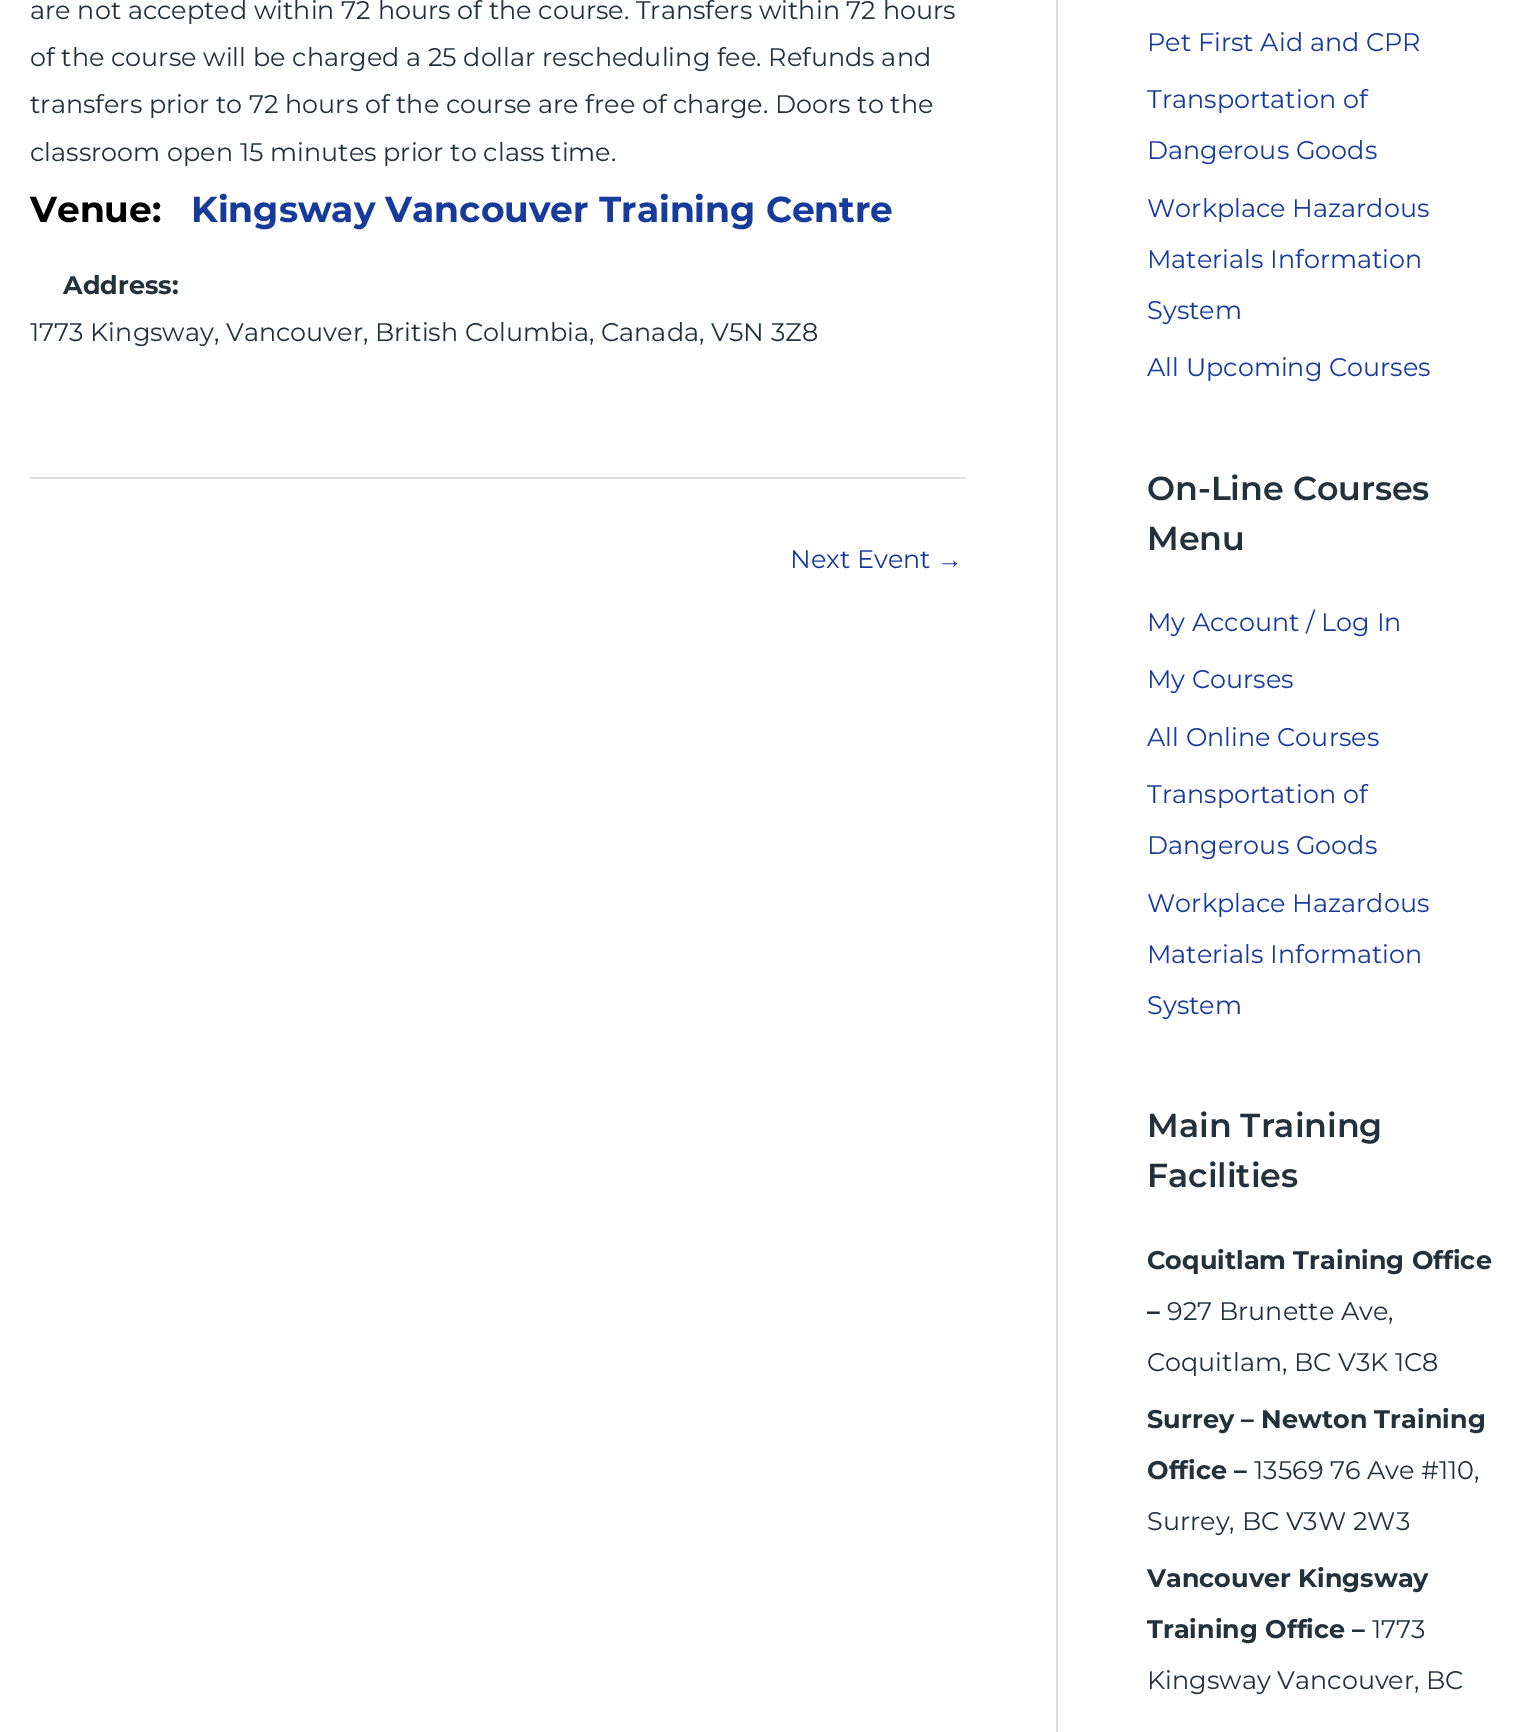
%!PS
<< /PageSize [1527 1732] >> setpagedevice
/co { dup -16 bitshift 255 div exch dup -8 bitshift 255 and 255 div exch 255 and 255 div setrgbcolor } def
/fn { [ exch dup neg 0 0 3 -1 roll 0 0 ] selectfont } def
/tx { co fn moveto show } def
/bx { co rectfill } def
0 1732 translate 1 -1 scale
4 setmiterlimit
0 0 1527 1732 16#FFFFFF bx
30 477 936 2 16#DDDDDD bx
1056 0 2 1732 16#DDDDDD bx
(are not accepted within 72 hours of the course. Transfers within 72 hours) 30 19 /Montserrat-Regular 25.5 16#22323D tx
(of the course will be charged a 25 dollar rescheduling fee. Refunds and) 30 66 /Montserrat-Regular 25.5 16#22323D tx
(transfers prior to 72 hours of the course are free of charge. Doors to the) 30 113 /Montserrat-Regular 25.5 16#22323D tx
(classroom open 15 minutes prior to class time.) 30 161 /Montserrat-Regular 25.5 16#22323D tx
(Venue:) 30 222 /Montserrat-Bold 36 16#000000 tx
(Kingsway Vancouver Training Centre) 191 222 /Montserrat-Bold 36 16#173B9B tx
(Address:) 63 294 /Montserrat-Bold 25.5 16#22323D tx
(1773 Kingsway, Vancouver, British Columbia, Canada, V5N 3Z8) 30 341 /Montserrat-Regular 25.5 16#22323D tx
(Next Event) 790 568 /Montserrat-Regular 25.5 16#173B9B tx
(→) 937 568 /LiberationSerif-Regular 25.5 16#173B9B tx
(Pet First Aid and CPR) 1147 51 /Montserrat-Regular 25.5 16#173B9B tx
(Transportation of) 1147 108 /Montserrat-Regular 25.5 16#173B9B tx
(Dangerous Goods) 1147 159 /Montserrat-Regular 25.5 16#173B9B tx
(Workplace Hazardous) 1147 217 /Montserrat-Regular 25.5 16#173B9B tx
(Materials Information) 1147 268 /Montserrat-Regular 25.5 16#173B9B tx
(System) 1147 319 /Montserrat-Regular 25.5 16#173B9B tx
(All Upcoming Courses) 1147 376 /Montserrat-Regular 25.5 16#173B9B tx
(On-Line Courses) 1147 500 /Montserrat-SemiBold 33.25 16#22323D tx
(Menu) 1147 550 /Montserrat-SemiBold 33.25 16#22323D tx
(My Account / Log In) 1147 631 /Montserrat-Regular 25.5 16#173B9B tx
(My Courses) 1147 688 /Montserrat-Regular 25.5 16#173B9B tx
(All Online Courses) 1147 746 /Montserrat-Regular 25.5 16#173B9B tx
(Transportation of) 1147 803 /Montserrat-Regular 25.5 16#173B9B tx
(Dangerous Goods) 1147 854 /Montserrat-Regular 25.5 16#173B9B tx
(Workplace Hazardous) 1147 912 /Montserrat-Regular 25.5 16#173B9B tx
(Materials Information) 1147 963 /Montserrat-Regular 25.5 16#173B9B tx
(System) 1147 1014 /Montserrat-Regular 25.5 16#173B9B tx
(Main Training) 1147 1137 /Montserrat-SemiBold 33.25 16#22323D tx
(Facilities) 1147 1187 /Montserrat-SemiBold 33.25 16#22323D tx
(Coquitlam Training Office) 1147 1269 /Montserrat-Bold 25.5 16#22323D tx
(–) 1147 1320 /Montserrat-Bold 25.5 16#22323D tx
(927 Brunette Ave,) 1167 1320 /Montserrat-Regular 25.5 16#22323D tx
(Coquitlam, BC V3K 1C8) 1147 1371 /Montserrat-Regular 25.5 16#22323D tx
(Surrey – Newton Training) 1147 1428 /Montserrat-Bold 25.5 16#22323D tx
(Office –) 1147 1479 /Montserrat-Bold 25.5 16#22323D tx
(13569 76 Ave #110,) 1254 1479 /Montserrat-Regular 25.5 16#22323D tx
(Surrey, BC V3W 2W3) 1147 1530 /Montserrat-Regular 25.5 16#22323D tx
(Vancouver Kingsway) 1147 1587 /Montserrat-Bold 25.5 16#22323D tx
(Training Office –) 1147 1638 /Montserrat-Bold 25.5 16#22323D tx
(1773) 1372 1638 /Montserrat-Regular 25.5 16#22323D tx
(Kingsway Vancouver, BC) 1147 1689 /Montserrat-Regular 25.5 16#22323D tx
showpage
